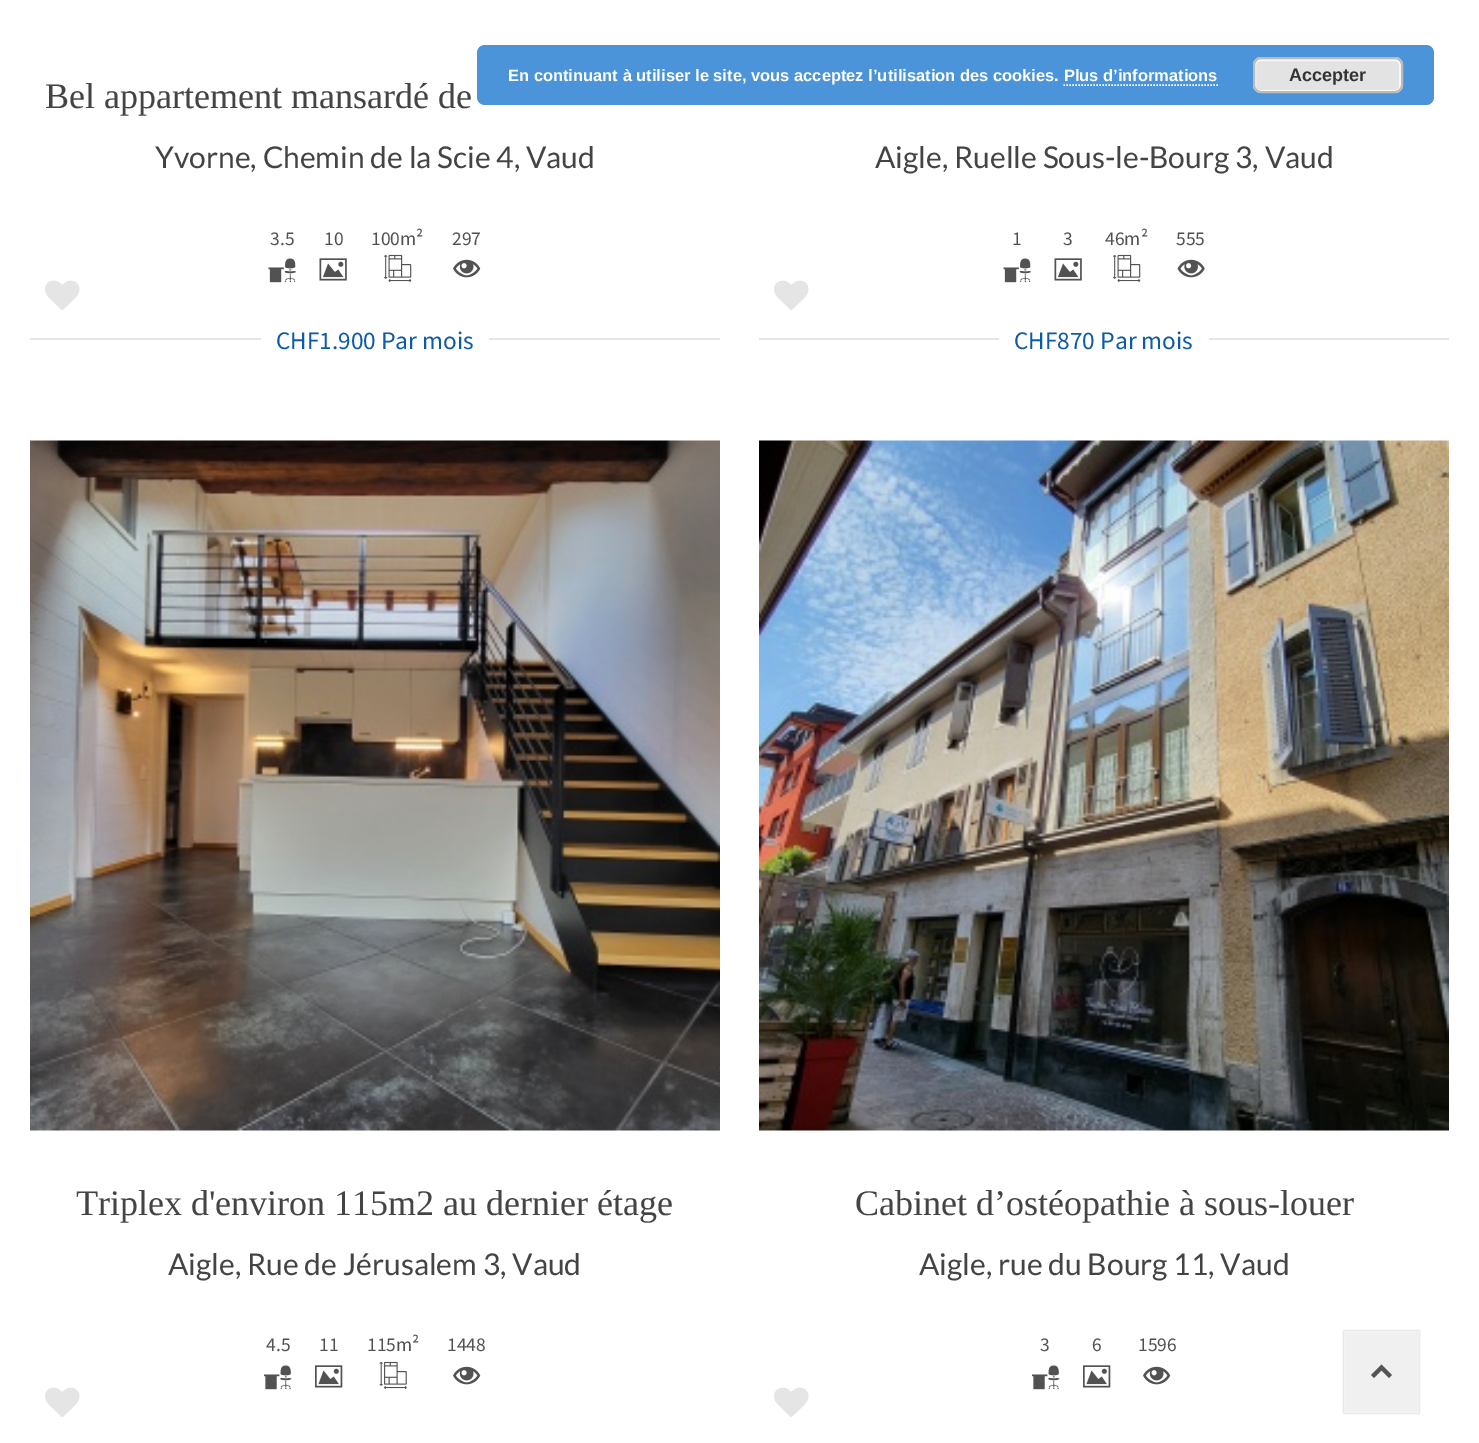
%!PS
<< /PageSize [1479 1443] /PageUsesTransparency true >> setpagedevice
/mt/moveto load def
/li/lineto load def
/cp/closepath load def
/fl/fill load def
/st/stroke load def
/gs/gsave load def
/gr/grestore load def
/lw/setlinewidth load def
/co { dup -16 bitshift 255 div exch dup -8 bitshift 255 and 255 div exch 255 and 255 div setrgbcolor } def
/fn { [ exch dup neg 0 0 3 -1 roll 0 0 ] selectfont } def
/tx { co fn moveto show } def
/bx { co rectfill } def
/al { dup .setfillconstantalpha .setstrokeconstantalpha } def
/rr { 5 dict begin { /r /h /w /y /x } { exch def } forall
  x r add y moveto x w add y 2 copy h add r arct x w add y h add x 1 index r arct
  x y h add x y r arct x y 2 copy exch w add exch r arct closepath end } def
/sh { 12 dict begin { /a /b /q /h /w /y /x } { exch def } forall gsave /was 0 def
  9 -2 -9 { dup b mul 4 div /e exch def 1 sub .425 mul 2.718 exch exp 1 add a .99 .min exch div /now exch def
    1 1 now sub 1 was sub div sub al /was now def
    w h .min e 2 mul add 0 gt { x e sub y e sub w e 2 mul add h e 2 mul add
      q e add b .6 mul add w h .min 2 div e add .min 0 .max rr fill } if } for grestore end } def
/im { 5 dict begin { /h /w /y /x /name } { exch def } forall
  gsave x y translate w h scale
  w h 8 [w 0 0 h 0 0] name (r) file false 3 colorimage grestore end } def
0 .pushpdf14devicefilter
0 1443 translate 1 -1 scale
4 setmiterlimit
0 0 1479 1443 16#FFFFFF bx
0.85 al
16#2D81D2 co
477 45 957 60 8 rr fl
1 al
16#E3E3E3 co
1253 57 150 36 8 rr fl
16#F6F6F6 co
2 lw
1255 60 145 31 5 rr st
16#BBBBBB co
1254 58 148 34 7 rr st
16#FFFFFF co
1.5 lw
[1.5 1.5] 0 setdash
1063.5 85 mt 1218 85 li st
30 338 690 2 16#E6E6E6 bx
(media/1.raw) 268 258 28 25 im
(media/2.raw) 319 258 28 23 im
(media/3.raw) 384 254 28 29 im
(media/4.raw) 453 259 28 19 im
(media/5.raw) 45 280 35 30 im
261 338 228 2 16#FFFFFF bx
759 338 690 2 16#E6E6E6 bx
(media/1.raw) 1003 258 28 25 im
(media/2.raw) 1054 258 28 23 im
(media/3.raw) 1113 254 28 29 im
(media/6.raw) 1177 259 28 19 im
(media/5.raw) 774 280 35 30 im
999 338 210 2 16#FFFFFF bx
(media/7.raw) 30 440 690 691 im
(media/8.raw) 264 1365 28 25 im
(media/9.raw) 315 1365 28 23 im
(media/10.raw) 379 1361 28 29 im
(media/4.raw) 453 1366 28 19 im
(media/5.raw) 45 1387 35 30 im
(media/11.raw) 759 440 690 691 im
(media/8.raw) 1032 1365 28 25 im
(media/9.raw) 1083 1365 28 23 im
(media/4.raw) 1143 1366 28 19 im
(media/5.raw) 774 1387 35 30 im
16#000000 co
1344 1331 75 82 0 1 .28 sh
16#F0F0F0 co
1345 1332 mt 1418 1332 li 1418 1412 li 1345 1412 li cp gs fl gr
16#F2F2F2 co
2 lw
[] 0 setdash
st
16#555555 co
1371 1375 mt 1381.5 1364.5 li 1392 1375 li 1389 1378 li 1381.5 1370.5 li 1374 1378 li cp fl
(En continuant à utiliser le site, vous acceptez l’utilisation des cookies. Plus d’informations) 508 81 /LiberationSans-Bold 16.5 16#FFFFFF tx
(Accepter) 1289 81 /LiberationSans-Bold 18 16#333333 tx
(Bel appartement mansardé de) 45 108 /LiberationSerif-Regular 36 16#444444 tx
(Yvorne, Chemin de la Scie 4, Vaud) 155 168 /Lato-Regular 30 16#444444 tx
(3.5) 270 245 /SourceSansPro-Regular 19.5 16#525252 tx
(10) 324 245 /SourceSansPro-Regular 19.5 16#525252 tx
(100m²) 371 245 /SourceSansPro-Regular 19.5 16#525252 tx
(297) 452 245 /SourceSansPro-Regular 19.5 16#525252 tx
(CHF1.900 Par mois) 276 349 /SourceSansPro-Regular 25.25 16#0D5BA7 tx
(Aigle, Ruelle Sous-le-Bourg 3, Vaud) 875 168 /Lato-Regular 30 16#444444 tx
(1) 1012 245 /SourceSansPro-Regular 19.5 16#525252 tx
(3) 1063 245 /SourceSansPro-Regular 19.5 16#525252 tx
(46m²) 1105 245 /SourceSansPro-Regular 19.5 16#525252 tx
(555) 1176 245 /SourceSansPro-Regular 19.5 16#525252 tx
(CHF870 Par mois) 1014 349 /SourceSansPro-Regular 25.25 16#0D5BA7 tx
(Triplex d'environ 115m2 au dernier étage) 76 1215 /LiberationSerif-Regular 36 16#444444 tx
(Aigle, Rue de Jérusalem 3, Vaud) 168 1275 /Lato-Regular 30 16#444444 tx
(4.5) 266 1351 /SourceSansPro-Regular 19.5 16#525252 tx
(11) 319 1351 /SourceSansPro-Regular 19.5 16#525252 tx
(115m²) 367 1351 /SourceSansPro-Regular 19.5 16#525252 tx
(1448) 447 1351 /SourceSansPro-Regular 19.5 16#525252 tx
(Cabinet d’ostéopathie à sous-louer) 855 1215 /LiberationSerif-Regular 36 16#444444 tx
(Aigle, rue du Bourg 11, Vaud) 919 1275 /Lato-Regular 30 16#444444 tx
(3) 1040 1351 /SourceSansPro-Regular 19.5 16#525252 tx
(6) 1092 1351 /SourceSansPro-Regular 19.5 16#525252 tx
(1596) 1138 1351 /SourceSansPro-Regular 19.5 16#525252 tx
.poppdf14devicefilter showpage
